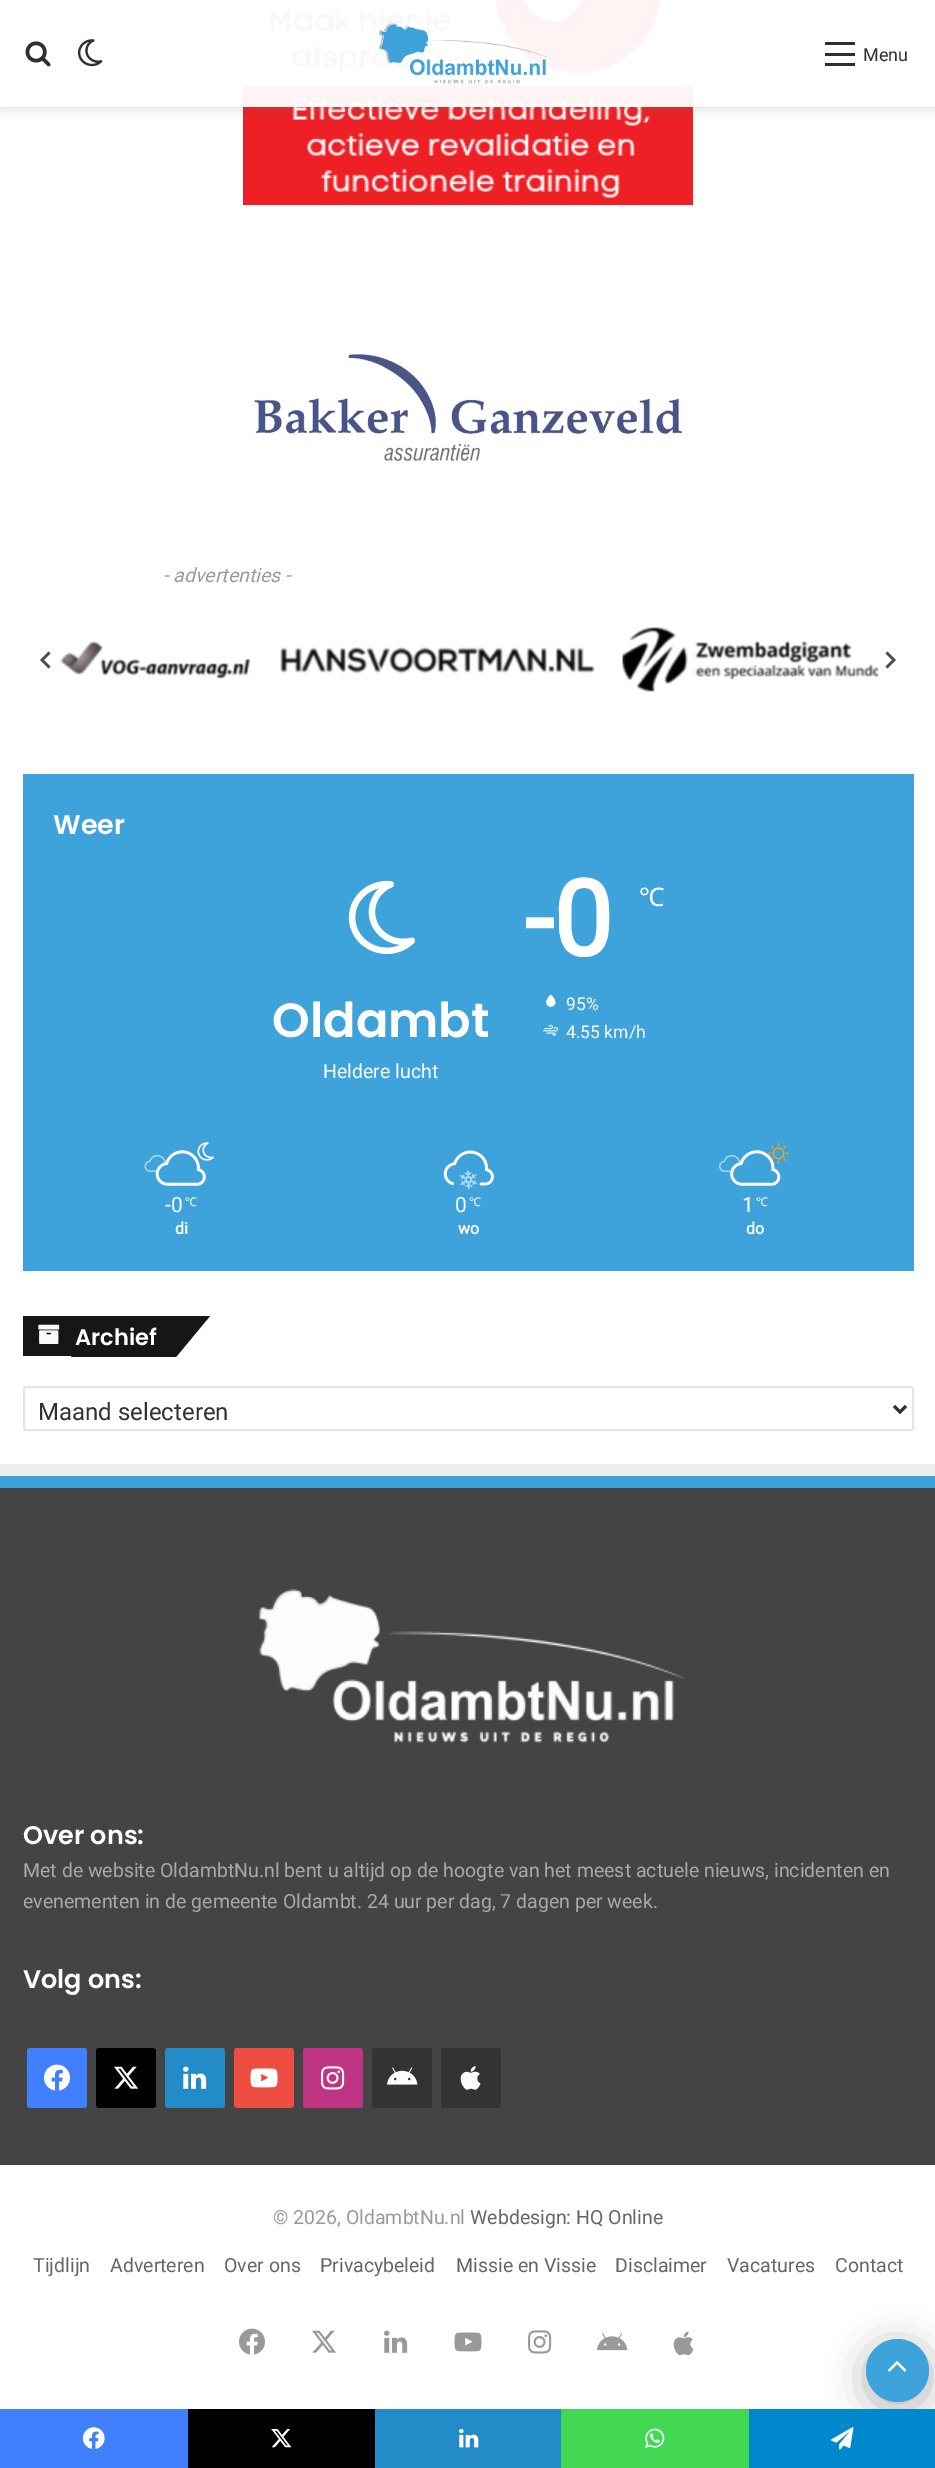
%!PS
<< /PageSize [935 2468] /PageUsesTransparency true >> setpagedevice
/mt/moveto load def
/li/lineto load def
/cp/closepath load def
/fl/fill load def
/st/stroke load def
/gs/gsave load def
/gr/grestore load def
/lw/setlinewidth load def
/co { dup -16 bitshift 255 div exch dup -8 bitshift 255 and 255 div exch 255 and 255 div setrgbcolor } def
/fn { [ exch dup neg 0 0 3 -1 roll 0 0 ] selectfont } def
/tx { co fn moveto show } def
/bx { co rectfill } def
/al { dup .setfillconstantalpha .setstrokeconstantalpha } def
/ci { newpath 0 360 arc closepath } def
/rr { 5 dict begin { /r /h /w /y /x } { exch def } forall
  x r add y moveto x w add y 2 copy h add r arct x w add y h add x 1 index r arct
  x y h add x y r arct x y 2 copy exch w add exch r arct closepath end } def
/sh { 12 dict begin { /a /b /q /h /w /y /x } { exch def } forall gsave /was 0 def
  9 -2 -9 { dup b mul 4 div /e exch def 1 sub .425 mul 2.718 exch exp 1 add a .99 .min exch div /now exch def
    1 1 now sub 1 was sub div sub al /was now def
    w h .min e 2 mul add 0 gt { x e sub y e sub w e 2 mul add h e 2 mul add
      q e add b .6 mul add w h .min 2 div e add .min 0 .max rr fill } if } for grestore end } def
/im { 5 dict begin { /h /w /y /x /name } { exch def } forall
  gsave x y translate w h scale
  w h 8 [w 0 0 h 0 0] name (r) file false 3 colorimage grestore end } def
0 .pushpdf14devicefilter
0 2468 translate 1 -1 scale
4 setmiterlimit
0 0 935 2468 16#FFFFFF bx
(media/4.raw) 243 0 450 205 im
gs
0 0 mt 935 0 li 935 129 li 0 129 li cp 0 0 mt 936 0 li 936 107 li 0 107 li cp eoclip newpath
16#636363 co
0 3 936 107 0 6 .2 sh
gr
0.95 al
0 0 935 107 16#FFFFFF bx
1 al
(media/1.raw) 25 41 26 26 im
(media/2.raw) 77 39 26 28 im
(media/3.raw) 378 23 172 61 im
825 53 30 3 16#2C2F34 bx
825 42 30 3 16#2C2F34 bx
825 63 30 3 16#2C2F34 bx
(media/5.raw) 254 354 429 108 im
(media/6.raw) 60 641 191 38 im
(media/7.raw) 280 647 315 27 im
(media/8.raw) 622 627 256 65 im
16#4E4E4E co
48.5 651.5 mt 50.5 653.5 li 44 660 li 50.5 666.5 li 48.5 668.5 li 40 660 li cp fl
887.5 651.5 mt 885.5 653.5 li 892 660 li 885.5 666.5 li 887.5 668.5 li 896 660 li cp fl
23 774 891 497 16#3EA2DB bx
(media/9.raw) 348 880 68 75 im
(media/10.raw) 546 994 10 13 im
(media/11.raw) 543 1024 15 12 im
(media/12.raw) 197 1142 18 19 im
(media/14.raw) 144 1155 22 17 im
(media/15.raw) 155 1161 14 11 im
(media/13.raw) 155 1150 51 36 im
(media/16.raw) 443 1150 51 36 im
(media/17.raw) 460 1170 17 19 im
(media/18.raw) 768 1142 21 22 im
(media/20.raw) 719 1155 22 17 im
(media/21.raw) 730 1159 43 13 im
(media/19.raw) 730 1150 51 36 im
23 1316 82 40 16#161616 bx
105 1316 mt 210 1316 li 176 1357 li 71 1357 li cp fl
(media/22.raw) 38 1324 22 20 im
16#E6E6E6 co
2 lw
24 1387 889 43 2 rr st
16#2E3136 co
3 lw
894 1406 mt 900 1412 li 906 1406 li st
0 1488 935 677 16#444444 bx
0 1464 935 12 16#EDEDED bx
0 1476 935 12 16#3EA2DB bx
(media/23.raw) 258 1589 426 154 im
16#407FFD co
27 2048 60 60 3 rr fl
(media/24.raw) 43 2064 28 27 im
16#010101 co
96 2048 60 60 3 rr fl
(media/25.raw) 114 2066 25 23 im
16#238BC7 co
165 2048 60 60 3 rr fl
(media/26.raw) 183 2066 24 23 im
16#ED4E41 co
234 2048 60 60 3 rr fl
(media/27.raw) 250 2068 28 20 im
16#C03583 co
303 2048 60 60 3 rr fl
(media/28.raw) 321 2066 24 24 im
16#333333 co
372 2048 60 60 3 rr fl
(media/29.raw) 387 2067 31 18 im
441 2048 60 60 3 rr fl
(media/30.raw) 460 2066 21 24 im
(media/31.raw) 238 2328 28 27 im
(media/32.raw) 312 2330 24 23 im
(media/33.raw) 384 2330 24 23 im
(media/34.raw) 454 2332 28 20 im
(media/35.raw) 528 2330 24 24 im
(media/36.raw) 597 2333 31 18 im
(media/37.raw) 673 2331 21 25 im
16#000000 co
866 2346 63 63 31.5 19 .3 sh
16#3EA2DB co
897.5 2370.5 31.5 ci fl
(media/38.raw) 887 2361 20 11 im
0 2409 188 59 16#4080FF bx
(media/39.raw) 82 2427 23 22 im
188 2409 187 59 16#000000 bx
(media/40.raw) 271 2429 21 19 im
375 2409 186 59 16#238CC8 bx
(media/41.raw) 459 2429 20 19 im
561 2409 188 59 16#43D854 bx
(media/42.raw) 645 2428 20 20 im
749 2409 186 59 16#0088CC bx
(media/43.raw) 831 2427 23 23 im
(Menu) 863 61 /Roboto-Regular 18 16#2E3136 tx
(- advertenties -) 163 582 /Roboto-Italic 19.5 16#9A9A9A tx
(Weer) 53 834 /Poppins-SemiBold 27 16#FFFFFF tx
(Oldambt) 272 1037 /Poppins-SemiBold 48 16#FFFFFF tx
(Heldere lucht) 323 1078 /Roboto-Regular 19.5 16#FFFFFF tx
(-0) 524 956 /Roboto-Bold 105 16#FFFFFF tx
(℃) 639 906 /NotoSans-Regular 25.5 16#FFFFFF tx
(95%) 566 1010 /Roboto-Regular 17.5 16#FFFFFF tx
(4.55 km/h) 566 1038 /Roboto-Regular 17.5 16#FFFFFF tx
(-0) 165 1212 /Roboto-Regular 21 16#FFFFFF tx
(℃) 185 1206 /NotoSans-Regular 12 16#FFFFFF tx
(di) 175 1234 /Roboto-Bold 16 16#FFFFFF tx
(0) 455 1212 /Roboto-Regular 21 16#FFFFFF tx
(℃) 469 1206 /NotoSans-Regular 12 16#FFFFFF tx
(wo) 458 1234 /Roboto-Bold 16 16#FFFFFF tx
(1) 742 1212 /Roboto-Regular 21 16#FFFFFF tx
(℃) 756 1206 /NotoSans-Regular 12 16#FFFFFF tx
(do) 746 1234 /Roboto-Bold 16 16#FFFFFF tx
(Archief) 75 1345 /Poppins-SemiBold 22.5 16#FFFFFF tx
(Maand selecteren) 38 1420 /Roboto-Regular 24 16#2E3136 tx
(Over ons:) 23 1844 /Poppins-SemiBold 25.5 16#FFFFFF tx
(Met de website OldambtNu.nl bent u altijd op de hoogte van het meest actuele nieuws, incidenten en) 23 1877 /Roboto-Regular 19.5 16#A9A9A9 tx
(evenementen in de gemeente Oldambt. 24 uur per dag, 7 dagen per week.) 23 1908 /Roboto-Regular 19.5 16#A9A9A9 tx
(Volg ons:) 23 1988 /Poppins-SemiBold 25.5 16#FFFFFF tx
(© 2026, OldambtNu.nl) 273 2224 /Roboto-Regular 19.5 16#9A9A9A tx
(Webdesign: HQ Online) 470 2224 /Roboto-Regular 19.5 16#666666 tx
(Tijdlijn) 33 2272 /Roboto-Regular 19.5 16#666666 tx
(Adverteren) 110 2272 /Roboto-Regular 19.5 16#666666 tx
(Over ons) 224 2272 /Roboto-Regular 19.5 16#666666 tx
(Privacybeleid) 320 2272 /Roboto-Regular 19.5 16#666666 tx
(Missie en Vissie) 456 2272 /Roboto-Regular 19.5 16#666666 tx
(Disclaimer) 615 2272 /Roboto-Regular 19.5 16#666666 tx
(Vacatures) 727 2272 /Roboto-Regular 19.5 16#666666 tx
(Contact) 835 2272 /Roboto-Regular 19.5 16#666666 tx
.poppdf14devicefilter showpage
